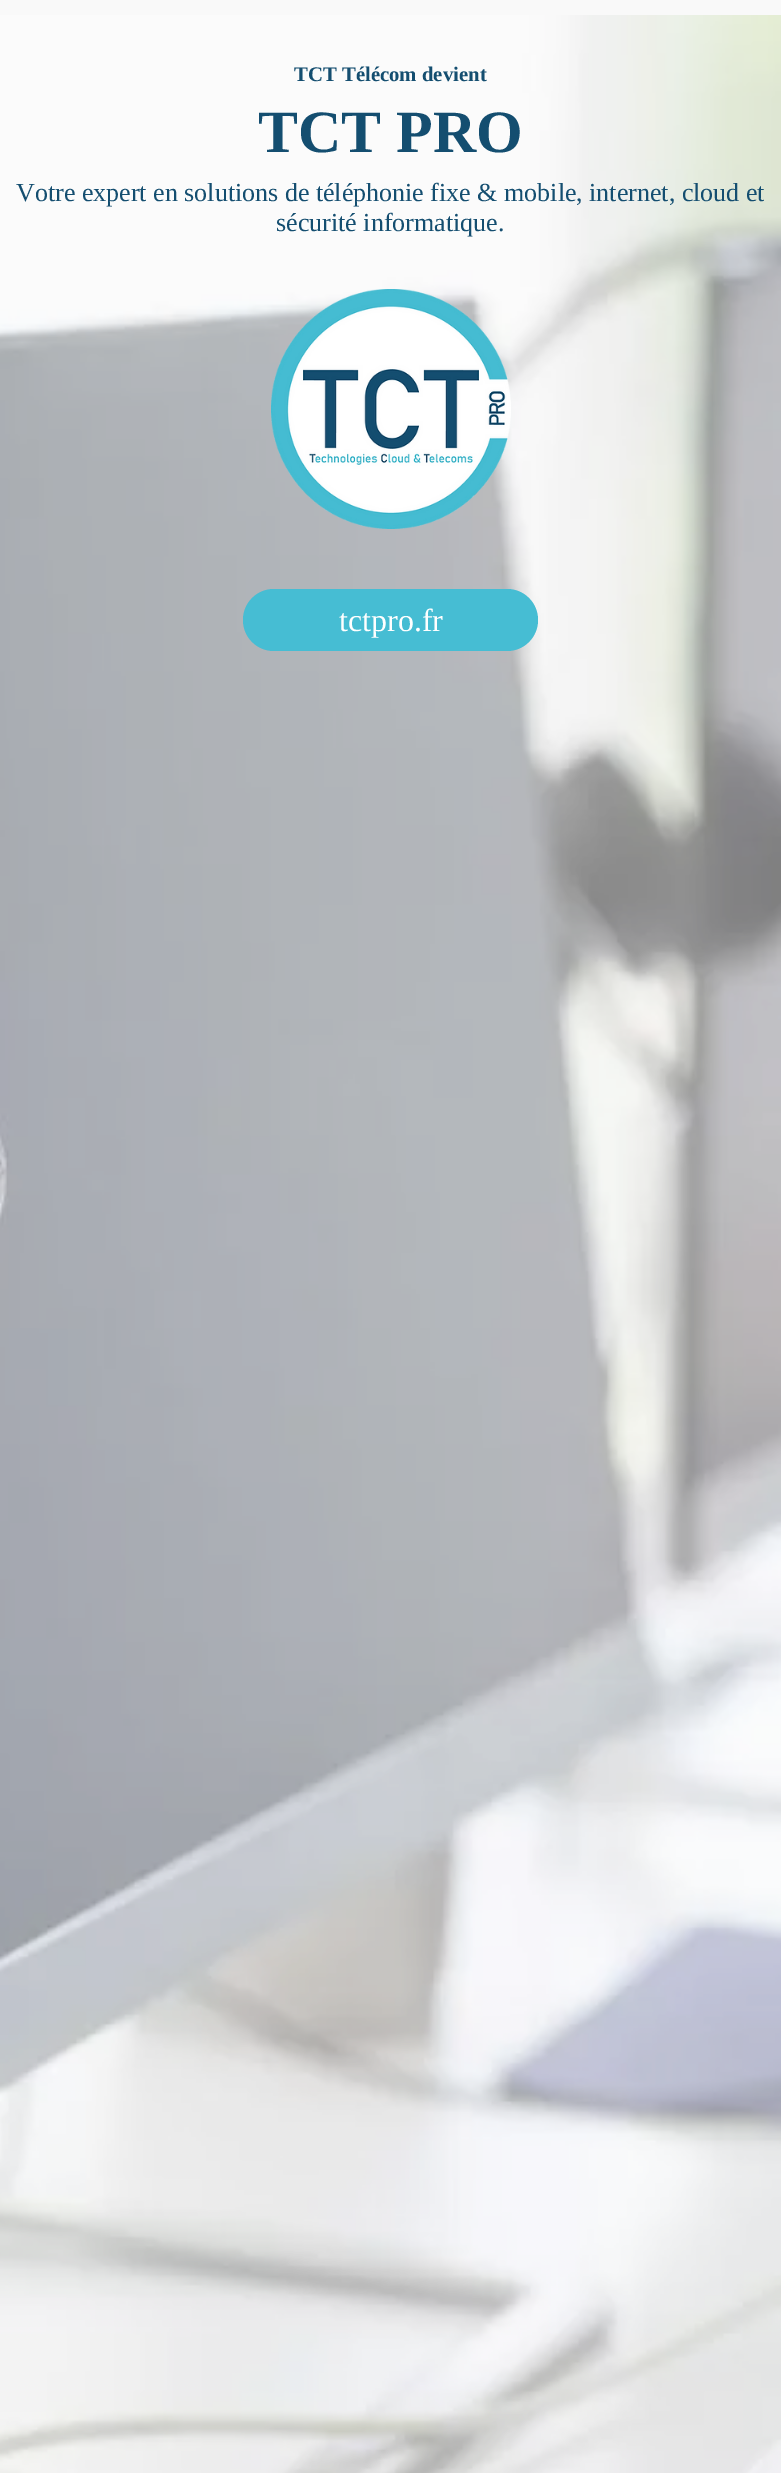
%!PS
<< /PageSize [781 2473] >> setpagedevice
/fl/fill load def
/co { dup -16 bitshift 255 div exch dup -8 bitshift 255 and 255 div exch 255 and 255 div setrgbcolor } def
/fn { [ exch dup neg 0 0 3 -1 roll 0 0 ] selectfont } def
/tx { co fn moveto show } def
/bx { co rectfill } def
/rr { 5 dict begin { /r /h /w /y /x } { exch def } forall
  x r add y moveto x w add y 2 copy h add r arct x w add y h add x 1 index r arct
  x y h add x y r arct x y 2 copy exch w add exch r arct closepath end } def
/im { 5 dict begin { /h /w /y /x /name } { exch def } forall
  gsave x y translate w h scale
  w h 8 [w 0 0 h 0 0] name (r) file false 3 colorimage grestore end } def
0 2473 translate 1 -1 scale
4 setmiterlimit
0 0 781 2473 16#F9F9F9 bx
(media/1.raw) 0 15 781 2458 im
(media/2.raw) 271 289 240 240 im
16#46BDD3 co
243 589 295 62 31 rr fl
(TCT Télécom devient) 294 81 /LiberationSerif-Bold 20.75 16#144E70 tx
(TCT PRO) 258 152 /LiberationSerif-Bold 60 16#144E70 tx
(Votre expert en solutions de téléphonie fixe & mobile, internet, cloud et) 16 201 /LiberationSerif-Regular 26 16#144E70 tx
(sécurité informatique.) 276 231 /LiberationSerif-Regular 26 16#144E70 tx
(tctpro.fr) 339 631 /LiberationSerif-Regular 32 16#FFFFFF tx
showpage
